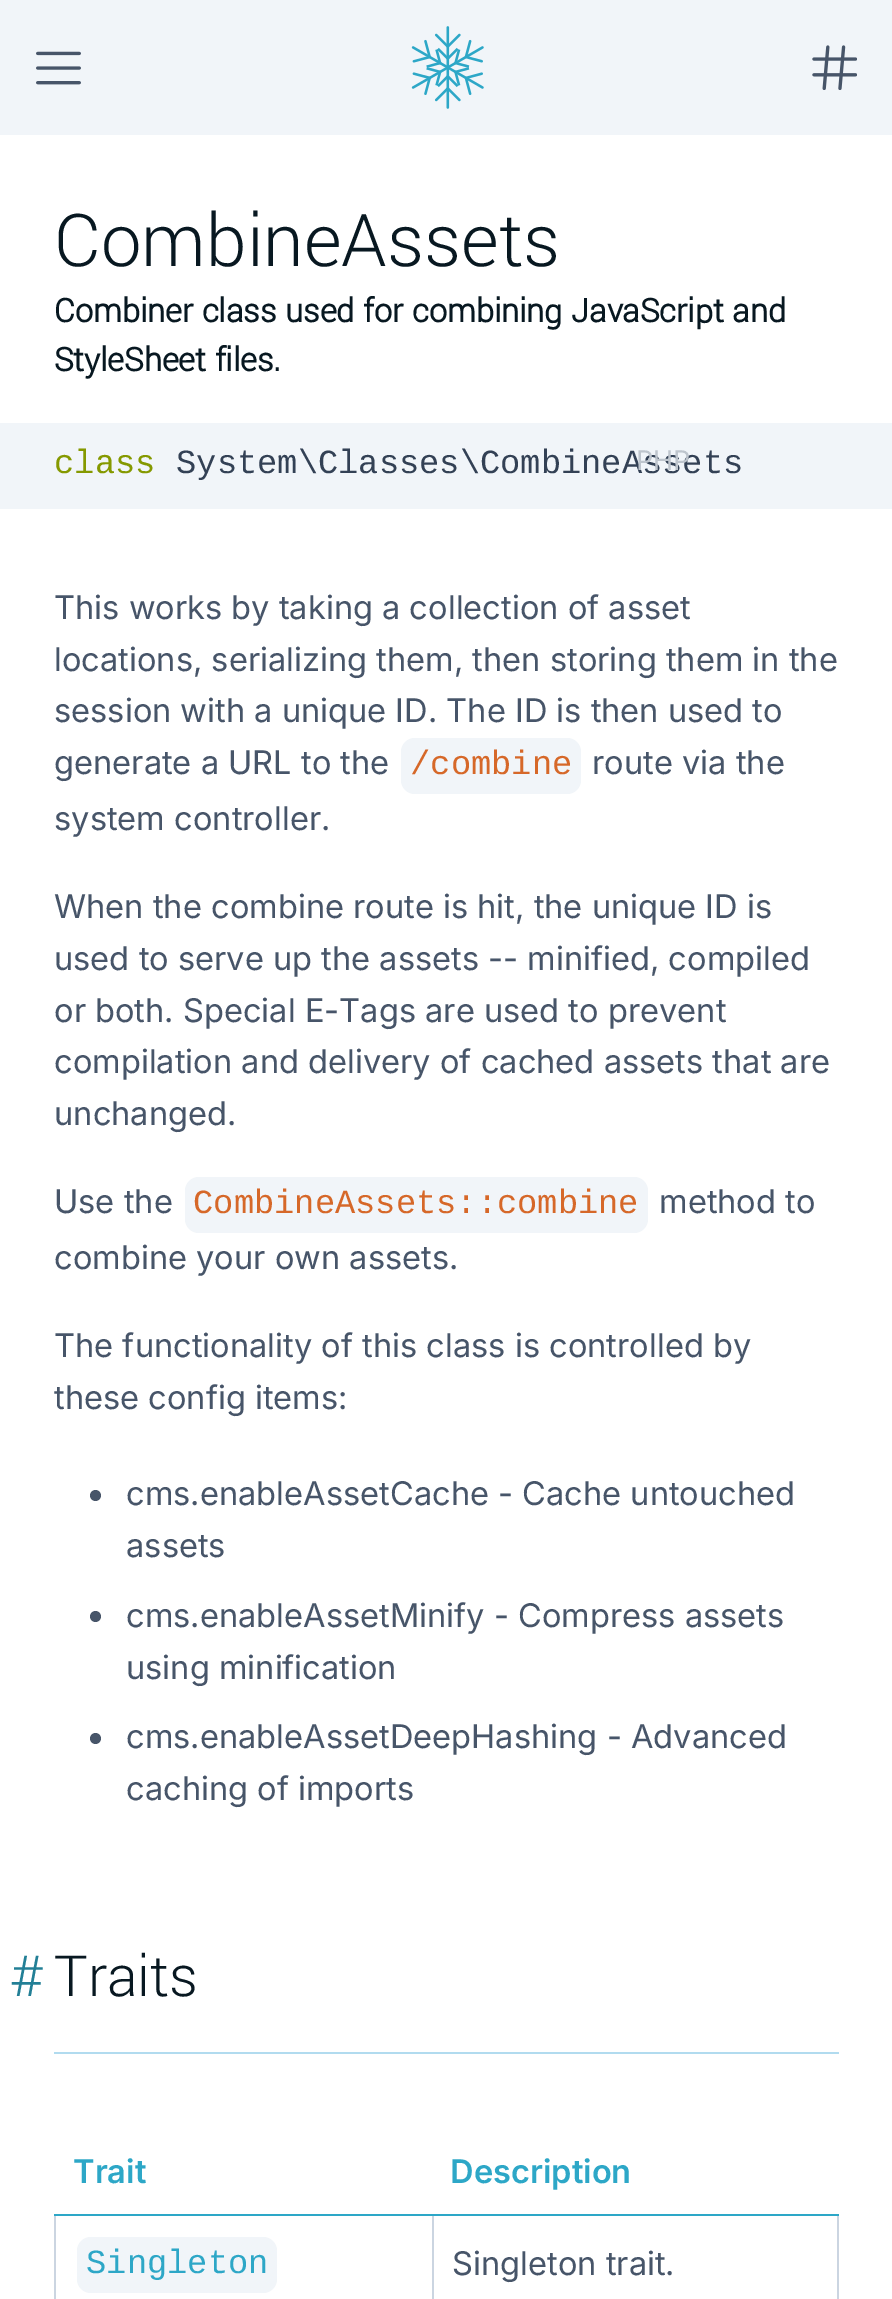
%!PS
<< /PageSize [892 2299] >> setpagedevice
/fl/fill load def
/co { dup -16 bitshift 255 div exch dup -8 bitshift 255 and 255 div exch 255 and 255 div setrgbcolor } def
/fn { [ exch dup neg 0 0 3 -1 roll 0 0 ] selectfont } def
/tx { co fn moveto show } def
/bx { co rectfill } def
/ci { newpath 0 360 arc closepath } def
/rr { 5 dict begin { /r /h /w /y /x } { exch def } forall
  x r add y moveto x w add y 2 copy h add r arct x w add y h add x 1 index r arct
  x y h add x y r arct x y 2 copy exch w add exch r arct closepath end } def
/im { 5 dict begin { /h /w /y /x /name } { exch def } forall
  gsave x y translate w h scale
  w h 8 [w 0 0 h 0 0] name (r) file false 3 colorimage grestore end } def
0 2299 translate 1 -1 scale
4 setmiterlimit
0 0 892 2299 16#FFFFFF bx
0 0 892 135 16#F1F5F9 bx
(media/1.raw) 36 51 45 34 im
(media/2.raw) 411 26 73 83 im
(media/3.raw) 812 45 45 45 im
0 423 892 86 16#F1F5F9 bx
401 738 180 56 14 rr fl
185 1177 463 56 14 rr fl
16#475569 co
95.5 1495.5 5.5 ci fl
95.5 1616.5 5.5 ci fl
95.5 1738.5 5.5 ci fl
54 2052 785 2 16#B1DBEF bx
54 2214 2 85 16#CBD5E1 bx
432 2214 2 85 16#CBD5E1 bx
837 2214 2 85 16#CBD5E1 bx
54 2214 785 2 16#2DA7C7 bx
16#F1F5F9 co
77 2237 200 56 14 rr fl
(CombineAssets) 54 266 /Yantramanav-Light 81 16#081821 tx
(Combiner class used for combining JavaScript and) 54 322 /Yantramanav-Bold 36 16#081821 tx
(StyleSheet files.) 54 371 /Yantramanav-Bold 36 16#081821 tx
(class) 54 473 /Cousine-Regular 33.75 16#859900 tx
(System\\Classes\\CombineAssets) 176 473 /Cousine-Regular 33.75 16#334155 tx
(PHP) 636 470 /Inter-Regular 27 16#BEC5CD tx
(This works by taking a collection of asset) 54 619 /Inter-Regular 32.6 16#475569 tx
(locations, serializing them, then storing them in the) 54 671 /Inter-Regular 32.6 16#475569 tx
(session with a unique ID. The ID is then used to) 54 722 /Inter-Regular 32.6 16#475569 tx
(generate a URL to the) 54 774 /Inter-Regular 32.6 16#475569 tx
(/combine) 410 774 /Cousine-Regular 33.75 16#D66829 tx
(route via the) 592 774 /Inter-Regular 32.6 16#475569 tx
(system controller.) 54 830 /Inter-Regular 32.6 16#475569 tx
(When the combine route is hit, the unique ID is) 54 918 /Inter-Regular 32.6 16#475569 tx
(used to serve up the assets -- minified, compiled) 54 970 /Inter-Regular 32.6 16#475569 tx
(or both. Special E-Tags are used to prevent) 54 1022 /Inter-Regular 32.6 16#475569 tx
(compilation and delivery of cached assets that are) 54 1073 /Inter-Regular 32.6 16#475569 tx
(unchanged.) 54 1125 /Inter-Regular 32.6 16#475569 tx
(Use the) 54 1213 /Inter-Regular 32.6 16#475569 tx
(CombineAssets::combine) 193 1213 /Cousine-Regular 33.75 16#D66829 tx
(method to) 659 1213 /Inter-Regular 32.6 16#475569 tx
(combine your own assets.) 54 1269 /Inter-Regular 32.6 16#475569 tx
(The functionality of this class is controlled by) 54 1357 /Inter-Regular 32.6 16#475569 tx
(these config items:) 54 1409 /Inter-Regular 32.6 16#475569 tx
(cms.enableAssetCache - Cache untouched) 126 1505 /Inter-Regular 32.6 16#475569 tx
(assets) 126 1557 /Inter-Regular 32.6 16#475569 tx
(cms.enableAssetMinify - Compress assets) 126 1627 /Inter-Regular 32.6 16#475569 tx
(using minification) 126 1679 /Inter-Regular 32.6 16#475569 tx
(cms.enableAssetDeepHashing - Advanced) 126 1748 /Inter-Regular 32.6 16#475569 tx
(caching of imports) 126 1800 /Inter-Regular 32.6 16#475569 tx
(#) 10 1996 /Yantramanav-Light 63 16#227F96 tx
(Traits) 54 1996 /Yantramanav-Light 63 16#081821 tx
(Trait) 73 2183 /Inter-SemiBold 32.6 16#2DA7C7 tx
(Description) 450 2183 /Inter-SemiBold 32.6 16#2DA7C7 tx
(Singleton) 86 2273 /Cousine-Regular 33.75 16#2DA7C7 tx
(Singleton trait.) 452 2275 /Inter-Regular 32.6 16#475569 tx
showpage
